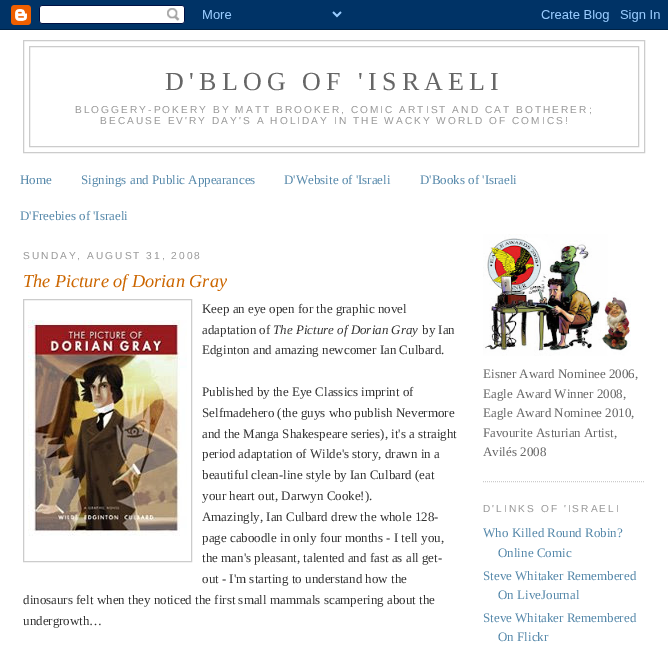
%!PS
<< /PageSize [668 645] >> setpagedevice
/mt/moveto load def
/li/lineto load def
/st/stroke load def
/co { dup -16 bitshift 255 div exch dup -8 bitshift 255 and 255 div exch 255 and 255 div setrgbcolor } def
/fn { [ exch dup neg 0 0 3 -1 roll 0 0 ] selectfont } def
/tx { co fn moveto show } def
/bx { co rectfill } def
/im { 5 dict begin { /h /w /y /x /name } { exch def } forall
  gsave x y translate w h scale
  w h 8 [w 0 0 h 0 0] name (r) file false 3 colorimage grestore end } def
0 645 translate 1 -1 scale
4 setmiterlimit
0 0 668 645 16#FFFFFF bx
(media/1.raw) 0 0 668 30 im
16#CCCCCC co
23.5 40.5 621 112 rectstroke
29.5 46.5 609 100 rectstroke
23.5 299.5 168 262 rectstroke
(media/2.raw) 28 320 159 216 im
[1 1] 0 setdash
483 481.5 mt 645 481.5 li st
(media/3.raw) 483 234 148 122 im
/LiberationSerif-Regular 26 fn
16#666666 co
165 90 mt 5.25 0 (D'BLOG OF 'ISRAELI) ashow
/LiberationSans-Regular 10.15 fn
16#999999 co
75 113 mt 2.03 0 (BLOGGERY-POKERY BY MATT BROOKER, COMIC ARTIST AND CAT BOTHERER;) ashow
100 124 mt 2.03 0 (BECAUSE EV'RY DAY'S A HOLIDAY IN THE WACKY WORLD OF COMICS!) ashow
(Home) 20 184 /LiberationSerif-Regular 13 16#5588AA tx
(Signings and Public Appearances) 81 184 /LiberationSerif-Regular 13 16#5588AA tx
(D'Website of 'Israeli) 284 184 /LiberationSerif-Regular 13 16#5588AA tx
(D'Books of 'Israeli) 420 184 /LiberationSerif-Regular 13 16#5588AA tx
(D'Freebies of 'Israeli) 20 220 /LiberationSerif-Regular 13 16#5588AA tx
/LiberationSans-Regular 10.15 fn
16#999999 co
23 259 mt 2.03 0 (SUNDAY, AUGUST 31, 2008) ashow
(The Picture of Dorian Gray) 23 287 /LiberationSerif-Italic 18.25 16#CC6600 tx
(Keep an eye open for the graphic novel) 202 313 /LiberationSerif-Regular 13 16#333333 tx
(adaptation of) 202 334 /LiberationSerif-Regular 13 16#333333 tx
(The Picture of Dorian Gray) 273 334 /LiberationSerif-Italic 13 16#333333 tx
(by Ian) 422 334 /LiberationSerif-Regular 13 16#333333 tx
(Edginton and amazing newcomer Ian Culbard.) 202 354 /LiberationSerif-Regular 13 16#333333 tx
(Published by the Eye Classics imprint of) 202 396 /LiberationSerif-Regular 13 16#333333 tx
(Selfmadehero \(the guys who publish Nevermore) 202 417 /LiberationSerif-Regular 13 16#333333 tx
(and the Manga Shakespeare series\), it's a straight) 202 438 /LiberationSerif-Regular 13 16#333333 tx
(period adaptation of Wilde's story, drawn in a) 202 458 /LiberationSerif-Regular 13 16#333333 tx
(beautiful clean-line style by Ian Culbard \(eat) 202 479 /LiberationSerif-Regular 13 16#333333 tx
(your heart out, Darwyn Cooke!\).) 202 500 /LiberationSerif-Regular 13 16#333333 tx
(Amazingly, Ian Culbard drew the whole 128-) 202 521 /LiberationSerif-Regular 13 16#333333 tx
(page caboodle in only four months - I tell you,) 202 542 /LiberationSerif-Regular 13 16#333333 tx
(the man's pleasant, talented and fast as all get-) 202 562 /LiberationSerif-Regular 13 16#333333 tx
(out - I'm starting to understand how the) 202 583 /LiberationSerif-Regular 13 16#333333 tx
(dinosaurs felt when they noticed the first small mammals scampering about the) 23 604 /LiberationSerif-Regular 13 16#333333 tx
(undergrowth…) 23 625 /LiberationSerif-Regular 13 16#333333 tx
(Eisner Award Nominee 2006,) 483 378 /LiberationSerif-Regular 13 16#666666 tx
(Eagle Award Winner 2008,) 483 398 /LiberationSerif-Regular 13 16#666666 tx
(Eagle Award Nominee 2010,) 483 417 /LiberationSerif-Regular 13 16#666666 tx
(Favourite Asturian Artist,) 483 437 /LiberationSerif-Regular 13 16#666666 tx
(Avilés 2008) 483 456 /LiberationSerif-Regular 13 16#666666 tx
/LiberationSans-Regular 10.15 fn
16#999999 co
483 512 mt 2.03 0 (D'LINKS OF 'ISRAELI) ashow
(Who Killed Round Robin?) 483 537 /LiberationSerif-Regular 13 16#5588AA tx
(Online Comic) 498 557 /LiberationSerif-Regular 13 16#5588AA tx
(Steve Whitaker Remembered) 483 580 /LiberationSerif-Regular 13 16#5588AA tx
(On LiveJournal) 498 599 /LiberationSerif-Regular 13 16#5588AA tx
(Steve Whitaker Remembered) 483 622 /LiberationSerif-Regular 13 16#5588AA tx
(On Flickr) 498 641 /LiberationSerif-Regular 13 16#5588AA tx
showpage
